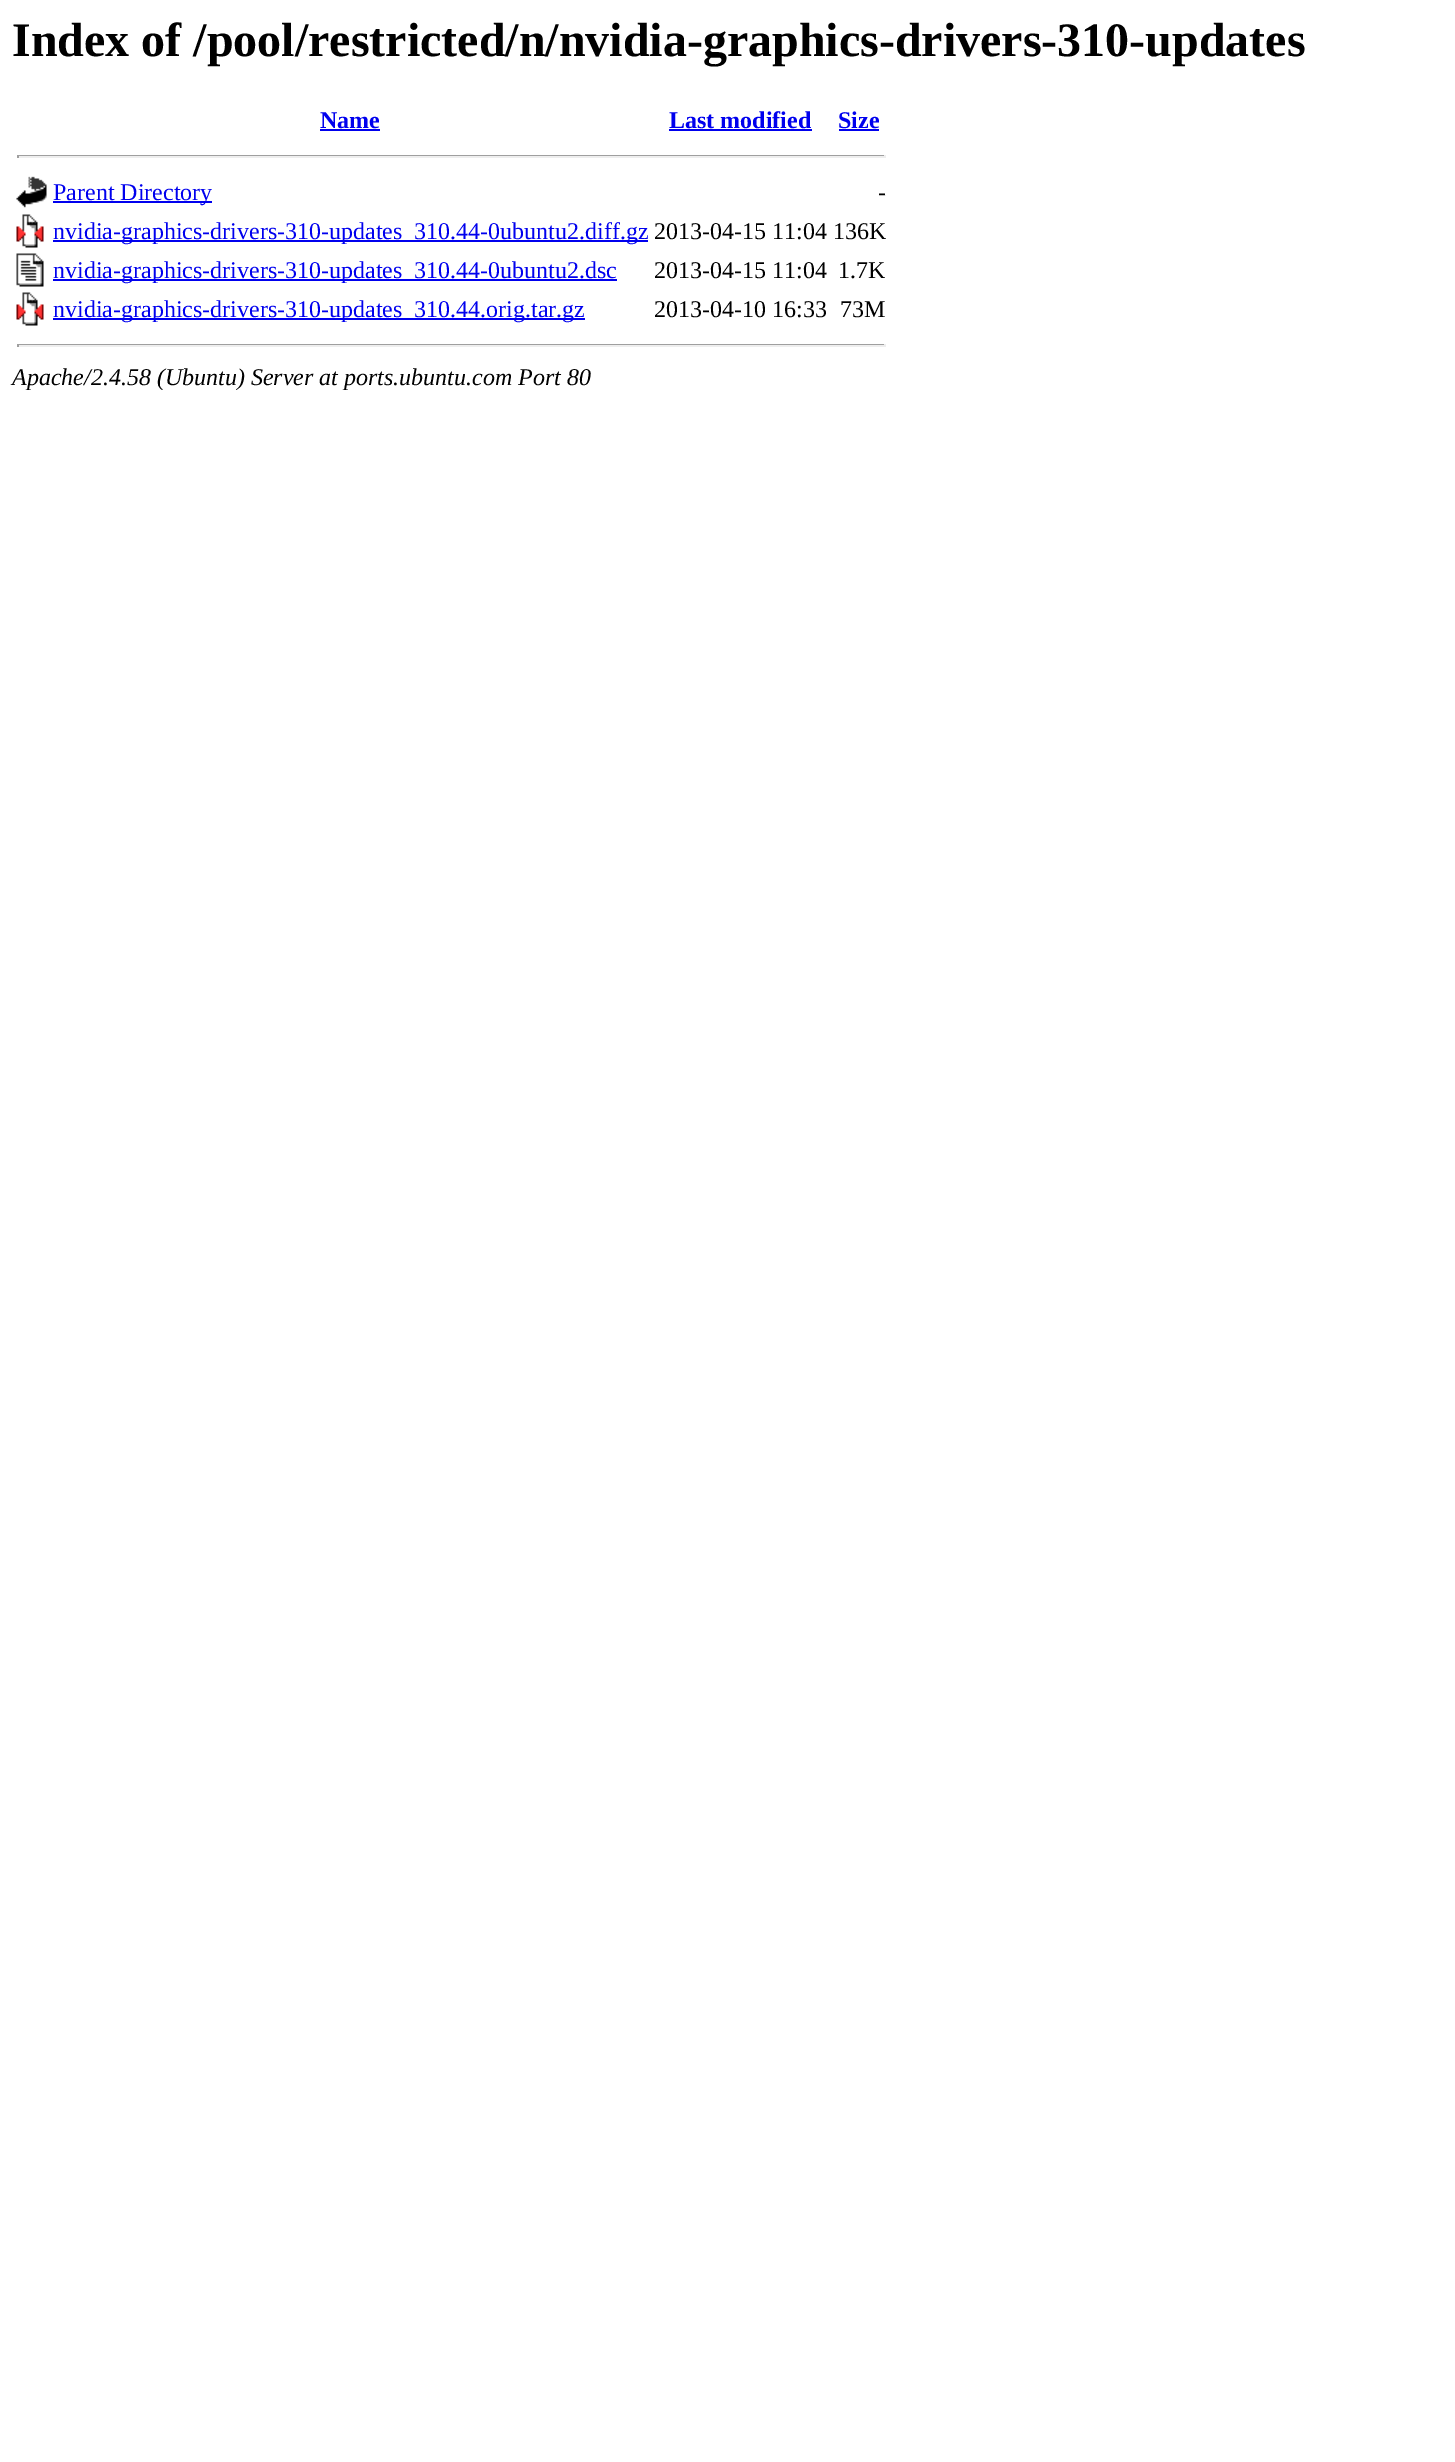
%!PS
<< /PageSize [1455 2462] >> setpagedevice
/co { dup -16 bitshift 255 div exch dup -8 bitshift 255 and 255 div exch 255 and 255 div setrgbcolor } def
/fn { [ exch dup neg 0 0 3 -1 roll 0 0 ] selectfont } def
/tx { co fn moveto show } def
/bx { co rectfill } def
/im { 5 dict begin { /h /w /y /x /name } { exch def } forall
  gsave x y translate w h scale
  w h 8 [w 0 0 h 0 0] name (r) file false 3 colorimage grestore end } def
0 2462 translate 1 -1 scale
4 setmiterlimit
0 0 1455 2462 16#FFFFFF bx
320 129 60 2 16#0000EE bx
669 129 143 2 16#0000EE bx
839 129 40 2 16#0000EE bx
17 155 868 1 16#9F9F9F bx
884 155 2 3 16#EEEEEE bx
17 156 868 2 16#EEEEEE bx
17 155 2 3 16#9F9F9F bx
(media/1.raw) 16 176 31 32 im
53 201 159 2 16#0000EE bx
(media/2.raw) 16 214 28 34 im
53 240 595 2 16#0000EE bx
(media/3.raw) 16 253 28 34 im
53 279 564 2 16#0000EE bx
(media/2.raw) 16 292 28 34 im
53 318 532 2 16#0000EE bx
17 344 868 1 16#9F9F9F bx
884 344 2 3 16#EEEEEE bx
17 345 868 2 16#EEEEEE bx
17 344 2 3 16#9F9F9F bx
(Index of /pool/restricted/n/nvidia-graphics-drivers-310-updates) 12 56 /LiberationSerif-Bold 48 16#000000 tx
(Name) 320 128 /LiberationSerif-Bold 24 16#0000EE tx
(Last modified) 669 128 /LiberationSerif-Bold 24 16#0000EE tx
(Size) 838 128 /LiberationSerif-Bold 24 16#0000EE tx
(Parent Directory) 53 200 /LiberationSerif-Regular 24 16#0000EE tx
(-) 878 200 /LiberationSerif-Regular 24 16#000000 tx
(nvidia-graphics-drivers-310-updates_310.44-0ubuntu2.diff.gz) 53 239 /LiberationSerif-Regular 24 16#0000EE tx
(2013-04-15 11:04 136K) 654 239 /LiberationSerif-Regular 24 16#000000 tx
(nvidia-graphics-drivers-310-updates_310.44-0ubuntu2.dsc) 53 278 /LiberationSerif-Regular 24 16#0000EE tx
(2013-04-15 11:04) 654 278 /LiberationSerif-Regular 24 16#000000 tx
(1.7K) 838 278 /LiberationSerif-Regular 24 16#000000 tx
(nvidia-graphics-drivers-310-updates_310.44.orig.tar.gz) 53 317 /LiberationSerif-Regular 24 16#0000EE tx
(2013-04-10 16:33) 654 317 /LiberationSerif-Regular 24 16#000000 tx
(73M) 840 317 /LiberationSerif-Regular 24 16#000000 tx
(Apache/2.4.58 \(Ubuntu\) Server at ports.ubuntu.com Port 80) 12 385 /LiberationSerif-Italic 24 16#000000 tx
showpage
